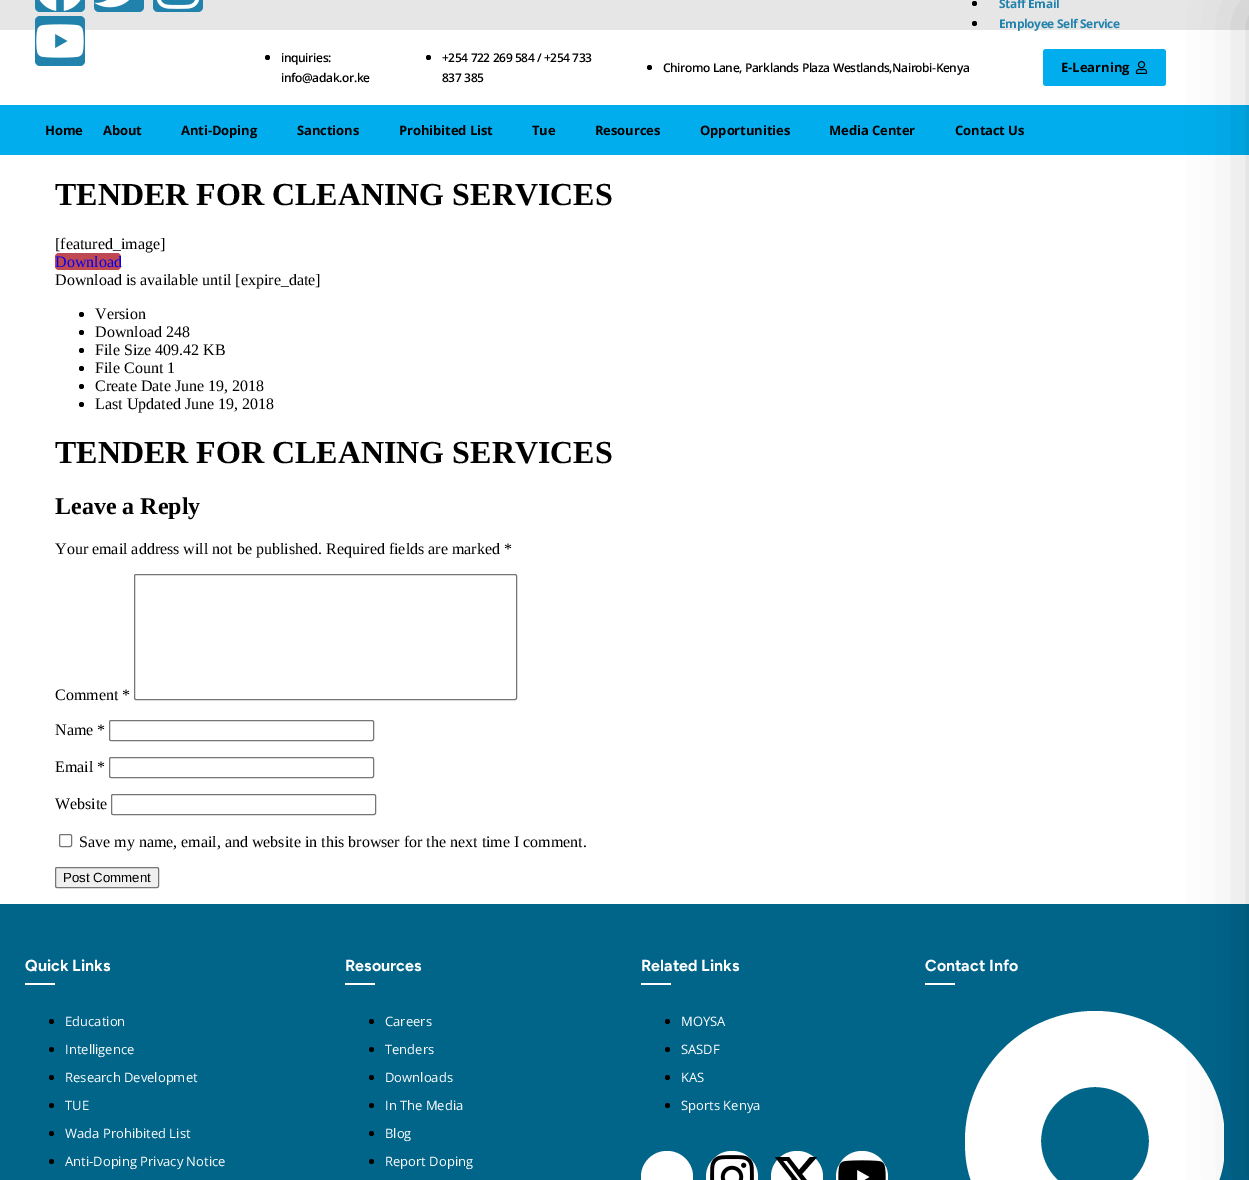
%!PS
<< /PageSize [1249 1180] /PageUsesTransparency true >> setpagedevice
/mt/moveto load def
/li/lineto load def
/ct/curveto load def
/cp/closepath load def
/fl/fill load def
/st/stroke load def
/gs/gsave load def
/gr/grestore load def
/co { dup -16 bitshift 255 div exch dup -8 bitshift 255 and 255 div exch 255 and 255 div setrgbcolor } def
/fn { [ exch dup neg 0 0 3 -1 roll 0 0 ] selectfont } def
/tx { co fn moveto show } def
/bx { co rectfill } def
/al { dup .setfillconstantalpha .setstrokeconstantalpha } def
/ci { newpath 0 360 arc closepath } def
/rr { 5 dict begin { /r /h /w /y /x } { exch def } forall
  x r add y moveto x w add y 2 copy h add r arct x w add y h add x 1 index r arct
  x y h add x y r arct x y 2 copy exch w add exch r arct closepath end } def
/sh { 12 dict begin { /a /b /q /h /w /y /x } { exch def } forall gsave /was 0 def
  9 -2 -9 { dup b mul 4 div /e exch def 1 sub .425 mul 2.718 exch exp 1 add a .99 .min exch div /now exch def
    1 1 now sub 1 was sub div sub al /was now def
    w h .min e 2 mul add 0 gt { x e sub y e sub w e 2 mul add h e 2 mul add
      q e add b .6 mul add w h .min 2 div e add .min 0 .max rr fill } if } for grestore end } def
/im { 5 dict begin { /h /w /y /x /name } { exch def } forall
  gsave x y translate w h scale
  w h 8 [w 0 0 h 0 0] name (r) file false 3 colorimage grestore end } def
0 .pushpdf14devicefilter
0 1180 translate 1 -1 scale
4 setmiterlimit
0 0 1249 1180 16#FFFFFF bx
0 0 1249 30 16#E6E6E6 bx
16#2182AB co
35 -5 50 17 5 rr fl
(media/1.raw) 39 0 42 11 im
94 -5 50 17 5 rr fl
(media/2.raw) 94 0 35 8 im
153 -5 50 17 5 rr fl
(media/3.raw) 156 0 43 9 im
35 16 50 50 5 rr fl
(media/4.raw) 36 24 48 34 im
16#000000 co
974.5 3.5 2.5 ci fl
974.5 23.5 2.5 ci fl
267.5 57.5 2.5 ci fl
428.5 57.5 2.5 ci fl
649.5 67.5 2.5 ci fl
16#01ADED co
1043 49 123 37 3 rr fl
(media/5.raw) 1135 61 13 13 im
0 105 1249 50 16#01ADED bx
0 904 1249 276 16#01658A bx
gs
965 1011 259 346 rectclip
16#FFFFFF co
1082 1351 mt 983 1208 965 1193 965 1141 ct 965 1069 1023 1011 1095 1011 ct 1167 1011 1225 1069 1225 1141 ct 1225 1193 1207 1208 1108 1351 ct 1102 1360 1088 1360 1082 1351 ct cp 1095 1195 mt 1125 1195 1149 1171 1149 1141 ct 1149 1111 1125 1087 1095 1087 ct 1065 1087 1041 1111 1041 1141 ct 1041 1171 1065 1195 1095 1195 ct cp fl
gr
16#000000 co
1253 10 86 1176 0 30 .2 sh
16#BF4953 co
55 253 66 17 4 rr fl
16#000000 co
81.5 314.5 2.5 ci fl
81.5 332.5 2.5 ci fl
81.5 350.5 2.5 ci fl
81.5 368.5 2.5 ci fl
81.5 386.5 2.5 ci fl
81.5 404.5 2.5 ci fl
16#767676 co
134.5 574.5 382 125 1.5 rr st
109.5 720.5 264 20 1.5 rr st
109.5 757.5 264 20 1.5 rr st
111.5 794.5 264 20 1.5 rr st
59.5 834.5 12 12 1.5 rr st
16#EFEFEF co
55.5 867.5 103 20 1.5 rr gs fl gr
16#767676 co
st
25 983 30 2 16#FFFFFF bx
16#000000 co
51.5 1021.5 2.5 ci fl
51.5 1049.5 2.5 ci fl
51.5 1077.5 2.5 ci fl
51.5 1105.5 2.5 ci fl
51.5 1133.5 2.5 ci fl
51.5 1161.5 2.5 ci fl
345 983 30 2 16#FFFFFF bx
16#000000 co
371.5 1021.5 2.5 ci fl
371.5 1049.5 2.5 ci fl
371.5 1077.5 2.5 ci fl
371.5 1105.5 2.5 ci fl
371.5 1133.5 2.5 ci fl
371.5 1161.5 2.5 ci fl
641 983 30 2 16#FFFFFF bx
16#000000 co
667.5 1021.5 2.5 ci fl
667.5 1049.5 2.5 ci fl
667.5 1077.5 2.5 ci fl
667.5 1105.5 2.5 ci fl
16#FFFFFF co
667 1177 26 ci fl
0.1 al
667 1177 25.5 ci st
1 al
732 1177 26 ci fl
0.1 al
732 1177 25.5 ci st
1 al
(media/6.raw) 710 1155 44 25 im
797 1177 26 ci fl
0.1 al
797 1177 25.5 ci st
1 al
16#000000 co
810 1157 mt 817 1157 li 802 1174 li 820 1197 li 806 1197 li 795 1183 li 782 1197 li 775 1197 li 792 1179 li 775 1157 li 789 1157 li 799 1170 li cp 808 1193 mt 811 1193 li 787 1161 li 783 1161 li cp fl
16#FFFFFF co
862 1177 26 ci fl
0.1 al
862 1177 25.5 ci st
1 al
(media/7.raw) 838 1160 48 20 im
925 983 30 2 16#FFFFFF bx
/OpenSans-Bold 12 fn
16#2182AB co
999 8 mt -.4 0 (Staff Email) ashow
999 28 mt -.4 0 (Employee Self Service) ashow
/OpenSans-SemiBold 12 fn
16#000000 co
281 62 mt -.4 0 (inquiries:) ashow
281 82 mt -.4 0 (info@adak.or.ke) ashow
442 62 mt -.4 0 (+254 722 269 584 / +254 733) ashow
442 82 mt -.4 0 (837 385) ashow
663 72 mt -.4 0 (Chiromo Lane, Parklands Plaza Westlands,Nairobi-Kenya) ashow
(E-Learning) 1061 72 /OpenSans-Bold 13 16#000000 tx
45 135 mt -.1 0 (Home) ashow
103 135 mt -.1 0 (About) ashow
181 135 mt -.1 0 (Anti-Doping) ashow
297 135 mt -.1 0 (Sanctions) ashow
399 135 mt -.1 0 (Prohibited List) ashow
532 135 mt -.1 0 (Tue) ashow
595 135 mt -.1 0 (Resources) ashow
700 135 mt -.1 0 (Opportunities) ashow
829 135 mt -.1 0 (Media Center) ashow
955 135 mt -.1 0 (Contact Us) ashow
(TENDER FOR CLEANING SERVICES) 55 205 /LiberationSerif-Bold 32 16#000000 tx
([featured_image]) 55 249 /LiberationSerif-Regular 16 16#000000 tx
(Download) 55 267 /LiberationSerif-Regular 16 16#0000EE tx
(Download is available until [expire_date]) 55 285 /LiberationSerif-Regular 16 16#000000 tx
(Version) 95 319 /LiberationSerif-Regular 16 16#000000 tx
(Download 248) 95 337 /LiberationSerif-Regular 16 16#000000 tx
(File Size 409.42 KB) 95 355 /LiberationSerif-Regular 16 16#000000 tx
(File Count 1) 95 373 /LiberationSerif-Regular 16 16#000000 tx
(Create Date June 19, 2018) 95 391 /LiberationSerif-Regular 16 16#000000 tx
(Last Updated June 19, 2018) 95 409 /LiberationSerif-Regular 16 16#000000 tx
(TENDER FOR CLEANING SERVICES) 55 463 /LiberationSerif-Bold 32 16#000000 tx
(Leave a Reply) 55 514 /LiberationSerif-Bold 24 16#000000 tx
(Your email address will not be published. Required fields are marked *) 55 554 /LiberationSerif-Regular 16 16#000000 tx
(Comment *) 55 700 /LiberationSerif-Regular 16 16#000000 tx
(Name *) 55 735 /LiberationSerif-Regular 16 16#000000 tx
(Email *) 55 772 /LiberationSerif-Regular 16 16#000000 tx
(Website) 55 809 /LiberationSerif-Regular 16 16#000000 tx
(Save my name, email, and website in this browser for the next time I comment.) 79 847 /LiberationSerif-Regular 16 16#000000 tx
(Post Comment) 63 882 /LiberationSans-Regular 13.25 16#000000 tx
(Quick Links) 25 971 /Figtree-Bold 16 16#FFFFFF tx
(Education) 65 1026 /OpenSans-Regular 13 16#FFFFFF tx
(Intelligence) 65 1054 /OpenSans-Regular 13 16#FFFFFF tx
(Research Developmet) 65 1082 /OpenSans-Regular 13 16#FFFFFF tx
(TUE) 65 1110 /OpenSans-Regular 13 16#FFFFFF tx
(Wada Prohibited List) 65 1138 /OpenSans-Regular 13 16#FFFFFF tx
(Anti-Doping Privacy Notice) 65 1166 /OpenSans-Regular 13 16#FFFFFF tx
(Resources) 345 971 /Figtree-Bold 16 16#FFFFFF tx
(Careers) 385 1026 /OpenSans-Regular 13 16#FFFFFF tx
(Tenders) 385 1054 /OpenSans-Regular 13 16#FFFFFF tx
(Downloads) 385 1082 /OpenSans-Regular 13 16#FFFFFF tx
(In The Media) 385 1110 /OpenSans-Regular 13 16#FFFFFF tx
(Blog) 385 1138 /OpenSans-Regular 13 16#FFFFFF tx
(Report Doping) 385 1166 /OpenSans-Regular 13 16#FFFFFF tx
(Related Links) 641 971 /Figtree-Bold 16 16#FFFFFF tx
(MOYSA) 681 1026 /OpenSans-Regular 13 16#FFFFFF tx
(SASDF) 681 1054 /OpenSans-Regular 13 16#FFFFFF tx
(KAS) 681 1082 /OpenSans-Regular 13 16#FFFFFF tx
(Sports Kenya) 681 1110 /OpenSans-Regular 13 16#FFFFFF tx
(Contact Info) 925 971 /Figtree-Bold 16 16#FFFFFF tx
.poppdf14devicefilter showpage
